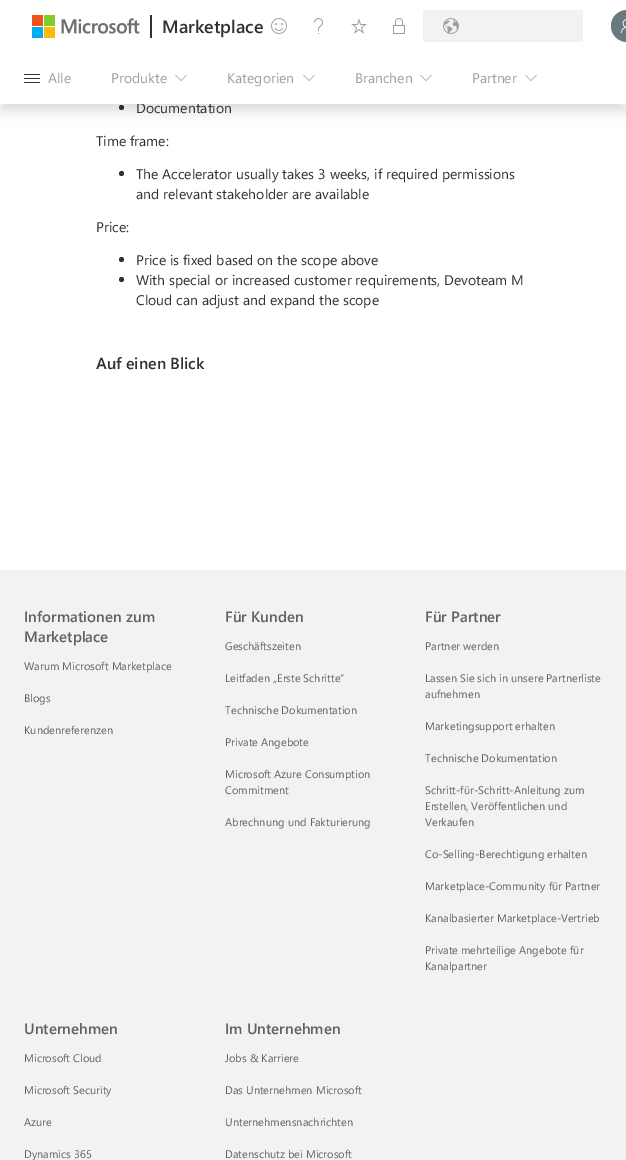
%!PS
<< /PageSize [626 1160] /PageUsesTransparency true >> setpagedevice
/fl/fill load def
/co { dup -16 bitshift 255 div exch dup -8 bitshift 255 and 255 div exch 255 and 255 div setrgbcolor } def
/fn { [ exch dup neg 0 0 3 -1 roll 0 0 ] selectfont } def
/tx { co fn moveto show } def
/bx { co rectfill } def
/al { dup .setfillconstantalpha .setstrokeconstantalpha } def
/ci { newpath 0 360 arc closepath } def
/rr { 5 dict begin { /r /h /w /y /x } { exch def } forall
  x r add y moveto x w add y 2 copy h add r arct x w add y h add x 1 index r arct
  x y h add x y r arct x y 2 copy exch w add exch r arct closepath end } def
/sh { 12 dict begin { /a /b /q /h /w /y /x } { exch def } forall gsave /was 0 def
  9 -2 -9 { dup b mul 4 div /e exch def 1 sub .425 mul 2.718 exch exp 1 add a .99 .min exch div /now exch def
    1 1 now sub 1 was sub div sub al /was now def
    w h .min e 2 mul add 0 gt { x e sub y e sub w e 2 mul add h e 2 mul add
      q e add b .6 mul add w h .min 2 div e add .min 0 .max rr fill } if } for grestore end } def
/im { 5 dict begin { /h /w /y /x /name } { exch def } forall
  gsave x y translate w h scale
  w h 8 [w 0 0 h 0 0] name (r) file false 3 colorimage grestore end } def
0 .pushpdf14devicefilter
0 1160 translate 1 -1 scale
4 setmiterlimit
0 0 626 1160 16#FFFFFF bx
16#323130 co
121.5 107.5 2.5 ci fl
16#000000 co
0 8 626 104 0 6 .12 sh
16#323130 co
121.5 173.5 2.5 ci fl
121.5 259.5 2.5 ci fl
121.5 279.5 2.5 ci fl
0 570 626 590 16#F2F2F2 bx
(Documentation) 136 113 /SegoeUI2-Regular 14 16#323130 tx
0 0 626 104 16#FFFFFF bx
(media/9.raw) 525 74 12 7 im
(Partner) 472 83 /SegoeUI2-Regular 14 16#A19F9D tx
(media/9.raw) 420 74 12 7 im
(Branchen) 355 83 /SegoeUI2-Regular 14 16#A19F9D tx
(media/9.raw) 303 74 12 7 im
(Kategorien) 227 83 /SegoeUI2-Regular 14 16#A19F9D tx
(media/9.raw) 175 74 12 7 im
(Produkte) 111 83 /SegoeUI2-Regular 14 16#A19F9D tx
(Alle) 48 83 /SegoeUI2-Regular 14 16#A19F9D tx
(media/8.raw) 24 74 16 9 im
16#69797E co
611 10 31 32 16 rr fl
(media/7.raw) 620 19 6 14 im
16#F3F2F1 co
423 10 160 32 2 rr fl
467 35 1 1 16#FCFBFB bx
566 35 1 1 16#FCFBFB bx
566 16 1 1 16#FCFBFB bx
467 16 1 1 16#FCFBFB bx
(media/6.raw) 443 18 16 16 im
(media/5.raw) 393 18 12 16 im
(media/4.raw) 351 18 16 16 im
(media/3.raw) 314 18 9 16 im
(media/2.raw) 271 18 16 16 im
150 15 2 23 16#323130 bx
(media/1.raw) 32 15 108 23 im
(Marketplace) 162 33 /SegoeUI2-SemiBold 18 16#323130 tx
(Time frame:) 96 146 /SegoeUI2-Regular 14 16#323130 tx
(The Accelerator usually takes 3 weeks, if required permissions) 136 179 /SegoeUI2-Regular 14 16#323130 tx
(and relevant stakeholder are available) 136 199 /SegoeUI2-Regular 14 16#323130 tx
(Price:) 96 232 /SegoeUI2-Regular 14 16#323130 tx
(Price is fixed based on the scope above) 136 265 /SegoeUI2-Regular 14 16#323130 tx
(With special or increased customer requirements, Devoteam M) 136 285 /SegoeUI2-Regular 14 16#323130 tx
(Cloud can adjust and expand the scope) 136 305 /SegoeUI2-Regular 14 16#323130 tx
(Auf einen Blick) 96 369 /SegoeUI2-SemiBold 16 16#323130 tx
(Informationen zum) 24 622 /SegoeUI-SemiBold 15 16#616161 tx
(Marketplace) 24 642 /SegoeUI-SemiBold 15 16#616161 tx
(Warum Microsoft Marketplace) 24 670 /SegoeUI-Regular 11 16#616161 tx
(Blogs) 24 702 /SegoeUI-Regular 11 16#616161 tx
(Kundenreferenzen) 24 734 /SegoeUI-Regular 11 16#616161 tx
(Für Kunden) 225 622 /SegoeUI-SemiBold 15 16#616161 tx
(Geschäftszeiten) 225 650 /SegoeUI-Regular 11 16#616161 tx
(Leitfaden „Erste Schritte“) 225 682 /SegoeUI-Regular 11 16#616161 tx
(Technische Dokumentation) 225 714 /SegoeUI-Regular 11 16#616161 tx
(Private Angebote) 225 746 /SegoeUI-Regular 11 16#616161 tx
(Microsoft Azure Consumption) 225 778 /SegoeUI-Regular 11 16#616161 tx
(Commitment) 225 794 /SegoeUI-Regular 11 16#616161 tx
(Abrechnung und Fakturierung) 225 826 /SegoeUI-Regular 11 16#616161 tx
(Für Partner) 425 622 /SegoeUI-SemiBold 15 16#616161 tx
(Partner werden) 425 650 /SegoeUI-Regular 11 16#616161 tx
(Lassen Sie sich in unsere Partnerliste) 425 682 /SegoeUI-Regular 11 16#616161 tx
(aufnehmen) 425 698 /SegoeUI-Regular 11 16#616161 tx
(Marketingsupport erhalten) 425 730 /SegoeUI-Regular 11 16#616161 tx
(Technische Dokumentation) 425 762 /SegoeUI-Regular 11 16#616161 tx
(Schritt-für-Schritt-Anleitung zum) 425 794 /SegoeUI-Regular 11 16#616161 tx
(Erstellen, Veröffentlichen und) 425 810 /SegoeUI-Regular 11 16#616161 tx
(Verkaufen) 425 826 /SegoeUI-Regular 11 16#616161 tx
(Co-Selling-Berechtigung erhalten) 425 858 /SegoeUI-Regular 11 16#616161 tx
(Marketplace-Community für Partner) 425 890 /SegoeUI-Regular 11 16#616161 tx
(Kanalbasierter Marketplace-Vertrieb) 425 922 /SegoeUI-Regular 11 16#616161 tx
(Private mehrteilige Angebote für) 425 954 /SegoeUI-Regular 11 16#616161 tx
(Kanalpartner) 425 970 /SegoeUI-Regular 11 16#616161 tx
(Unternehmen) 24 1034 /SegoeUI-SemiBold 15 16#616161 tx
(Microsoft Cloud) 24 1062 /SegoeUI-Regular 11 16#616161 tx
(Microsoft Security) 24 1094 /SegoeUI-Regular 11 16#616161 tx
(Azure) 24 1126 /SegoeUI-Regular 11 16#616161 tx
(Dynamics 365) 24 1158 /SegoeUI-Regular 11 16#616161 tx
(Im Unternehmen) 225 1034 /SegoeUI-SemiBold 15 16#616161 tx
(Jobs & Karriere) 225 1062 /SegoeUI-Regular 11 16#616161 tx
(Das Unternehmen Microsoft) 225 1094 /SegoeUI-Regular 11 16#616161 tx
(Unternehmensnachrichten) 225 1126 /SegoeUI-Regular 11 16#616161 tx
(Datenschutz bei Microsoft) 225 1158 /SegoeUI-Regular 11 16#616161 tx
.poppdf14devicefilter showpage
